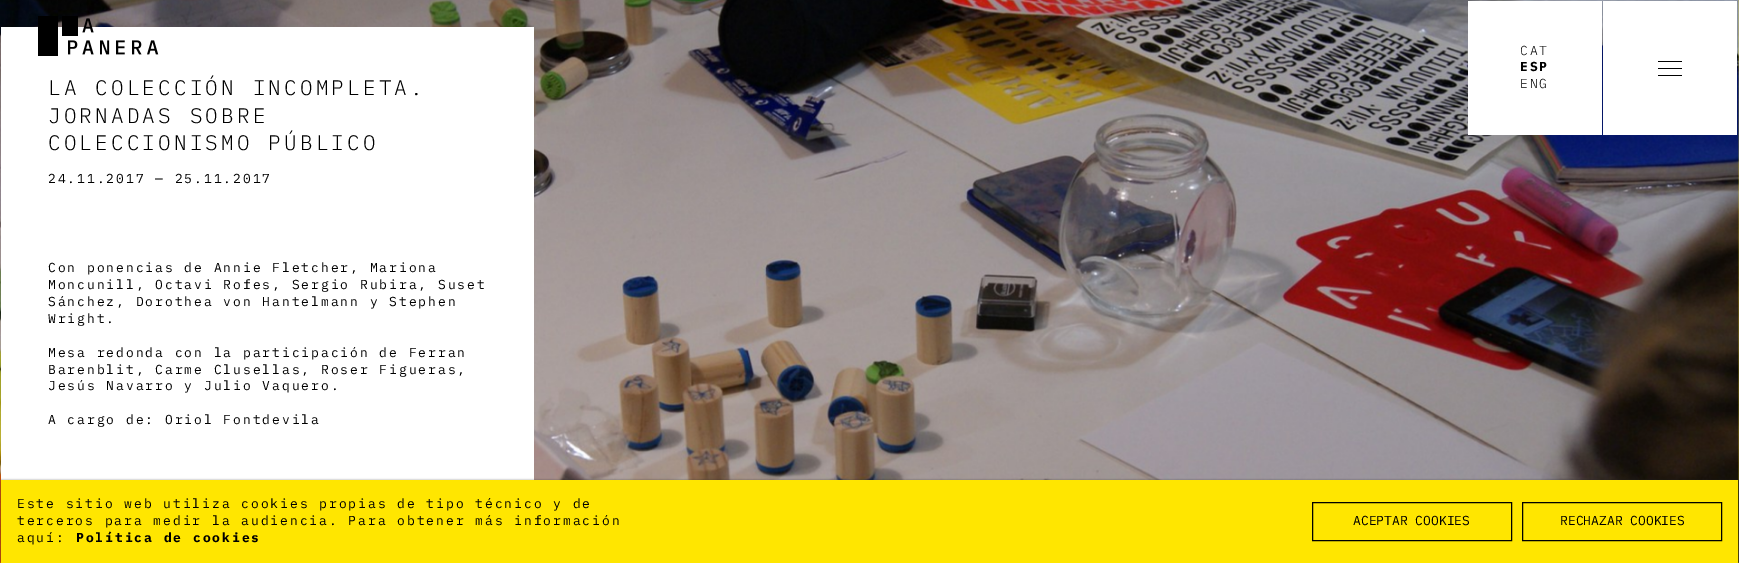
%!PS
<< /PageSize [1739 563] /PageUsesTransparency true >> setpagedevice
/mt/moveto load def
/co { dup -16 bitshift 255 div exch dup -8 bitshift 255 and 255 div exch 255 and 255 div setrgbcolor } def
/fn { [ exch dup neg 0 0 3 -1 roll 0 0 ] selectfont } def
/tx { co fn moveto show } def
/bx { co rectfill } def
/al { dup .setfillconstantalpha .setstrokeconstantalpha } def
/rr { 5 dict begin { /r /h /w /y /x } { exch def } forall
  x r add y moveto x w add y 2 copy h add r arct x w add y h add x 1 index r arct
  x y h add x y r arct x y 2 copy exch w add exch r arct closepath end } def
/sh { 12 dict begin { /a /b /q /h /w /y /x } { exch def } forall gsave /was 0 def
  9 -2 -9 { dup b mul 4 div /e exch def 1 sub .425 mul 2.718 exch exp 1 add a .99 .min exch div /now exch def
    1 1 now sub 1 was sub div sub al /was now def
    w h .min e 2 mul add 0 gt { x e sub y e sub w e 2 mul add h e 2 mul add
      q e add b .6 mul add w h .min 2 div e add .min 0 .max rr fill } if } for grestore end } def
/im { 5 dict begin { /h /w /y /x /name } { exch def } forall
  gsave x y translate w h scale
  w h 8 [w 0 0 h 0 0] name (r) file false 3 colorimage grestore end } def
0 .pushpdf14devicefilter
0 563 translate 1 -1 scale
4 setmiterlimit
0 0 1739 563 16#FFE600 bx
(media/2.raw) 0 0 1739 563 im
1 27 533 453 16#FFFFFF bx
(media/1.raw) 38 16 121 40 im
1603 1 134 134 16#FFFFFF bx
1658 68 24 1 16#000000 bx
1658 61 24 1 16#000000 bx
1658 75 24 1 16#000000 bx
1468 1 134 134 16#FFFFFF bx
16#222222 co
1 480 1737 83 0 1 .5 sh
1 480 1737 83 16#FFE600 bx
16#000000 co
1312.5 502.5 199 38 rectstroke
1522.5 502.5 199 38 rectstroke
/IBMPlexMono-Light 13 fn
1520 55 mt 1.95 0 (CAT) ashow
/IBMPlexMono-Bold 13 fn
1520 71 mt 1.95 0 (ESP) ashow
/IBMPlexMono-Light 13 fn
1520 88 mt 1.95 0 (ENG) ashow
/IBMPlexMono-Light 21 fn
48 95 mt 3.15 0 (LA COLECCIÓN INCOMPLETA.) ashow
48 123 mt 3.15 0 (JORNADAS SOBRE) ashow
48 150 mt 3.15 0 (COLECCIONISMO PÚBLICO) ashow
/IBMPlexMono-Regular 13 fn
48 183 mt 1.95 0 (24.11.2017 — 25.11.2017) ashow
48 272 mt 1.95 0 (Con ponencias de Annie Fletcher, Mariona) ashow
48 289 mt 1.95 0 (Moncunill, Octavi Rofes, Sergio Rubira, Suset) ashow
48 306 mt 1.95 0 (Sánchez, Dorothea von Hantelmann y Stephen) ashow
48 323 mt 1.95 0 (Wright.) ashow
48 357 mt 1.95 0 (Mesa redonda con la participación de Ferran) ashow
48 374 mt 1.95 0 (Barenblit, Carme Clusellas, Roser Figueras,) ashow
48 390 mt 1.95 0 (Jesús Navarro y Julio Vaquero.) ashow
48 424 mt 1.95 0 (A cargo de: Oriol Fontdevila) ashow
17 508 mt 1.95 0 (Este sitio web utiliza cookies propias de tipo técnico y de) ashow
17 525 mt 1.95 0 (terceros para medir la audiencia. Para obtener más información) ashow
17 542 mt 1.95 0 (aquí:) ashow
/IBMPlexMono-Bold 13 fn
76 542 mt 1.95 0 (Política de cookies) ashow
(ACEPTAR COOKIES) 1353 525 /IBMPlexMono-Regular 13 16#000000 tx
(RECHAZAR COOKIES) 1560 525 /IBMPlexMono-Regular 13 16#000000 tx
.poppdf14devicefilter showpage
